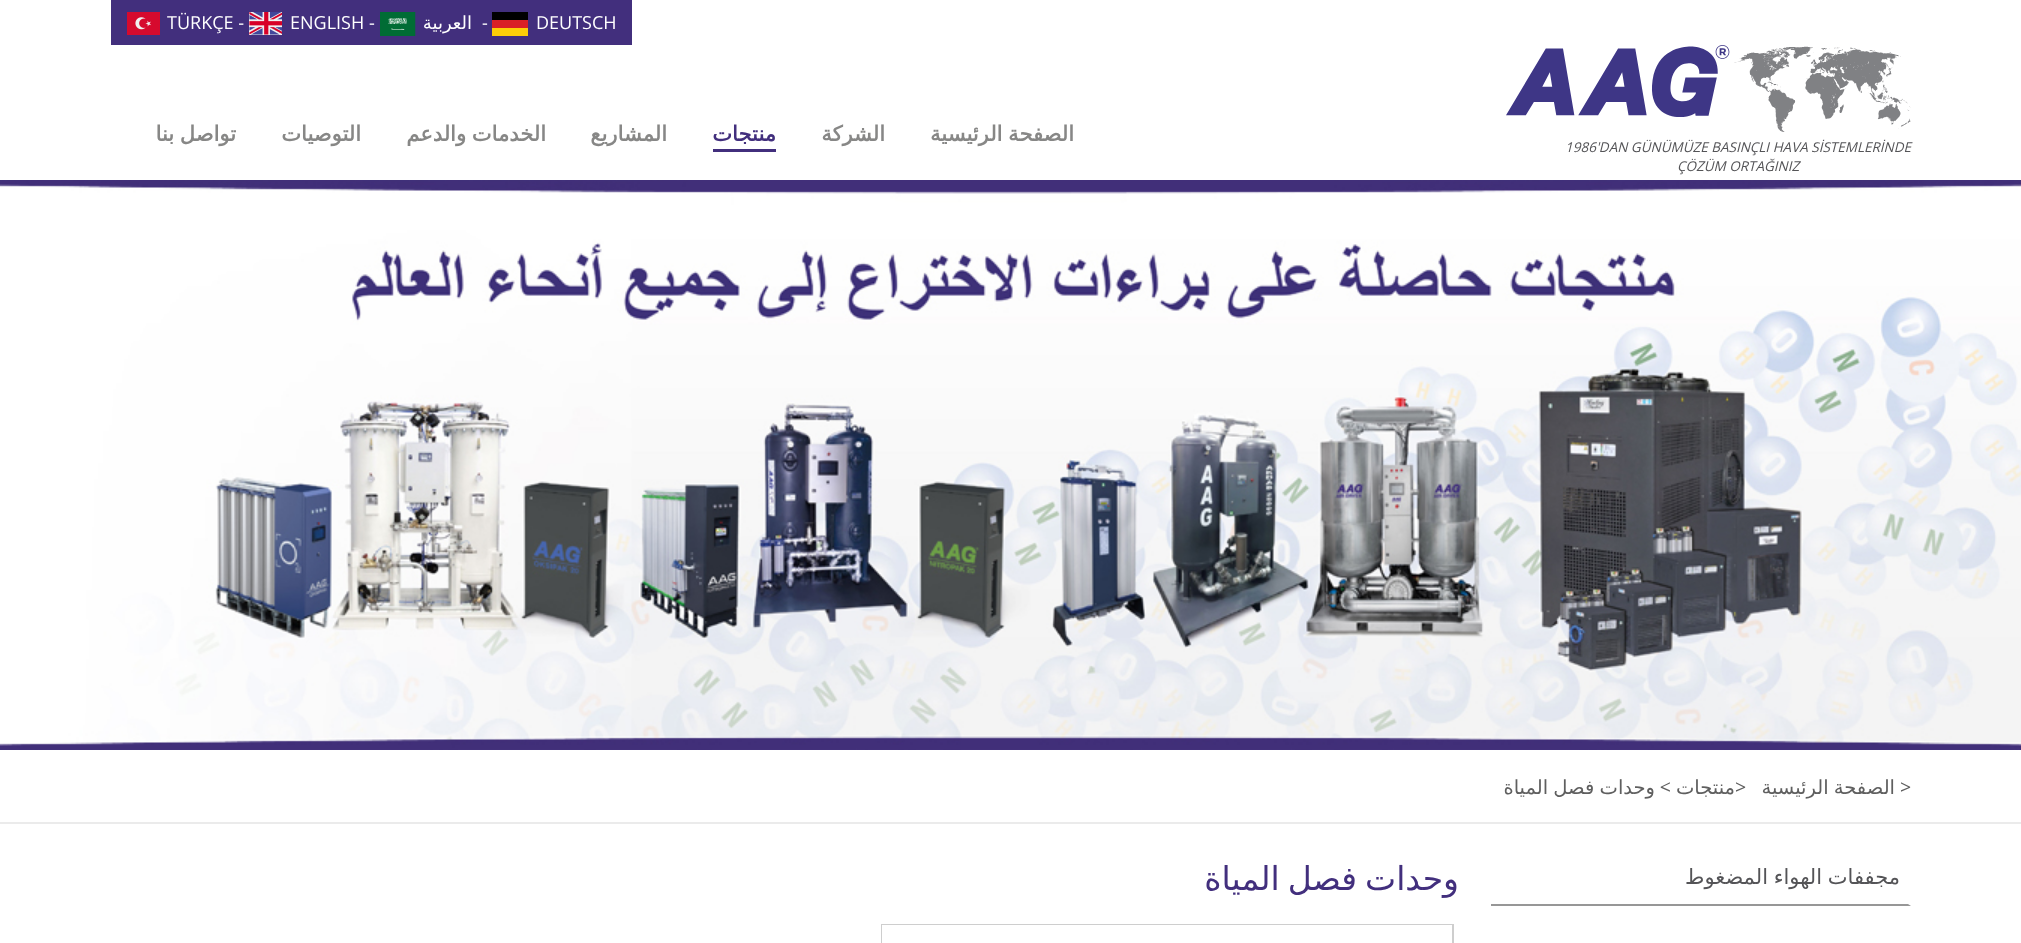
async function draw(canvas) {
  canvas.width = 2021
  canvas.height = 943
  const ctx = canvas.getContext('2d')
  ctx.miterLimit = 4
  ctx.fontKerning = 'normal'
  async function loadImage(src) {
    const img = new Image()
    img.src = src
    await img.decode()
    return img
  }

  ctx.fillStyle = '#fff'
  ctx.fillRect(0, 0, 2021, 943)
  ctx.fillStyle = '#422f7d'
  ctx.fillRect(111, 0, 521, 45)
  ctx.font = '18px Open Sans'
  ctx.fillStyle = '#fff'
  ctx.fillText('DEUTSCH', 536, 29)
  ctx.fillStyle = '#000'
  ctx.fillRect(492, 12, 36, 8)
  ctx.fillStyle = '#d91f26'
  ctx.fillRect(492, 20, 36, 8)
  ctx.fillStyle = '#fcce08'
  ctx.fillRect(492, 28, 36, 8)
  ctx.fillStyle = '#fff'
  ctx.fillText('-', 482, 29)
  ctx.direction = 'rtl'
  ctx.font = '18px DejaVu Sans'
  ctx.fillText('العربية', 472, 29)
  ctx.drawImage(await loadImage('image0.png'), 380, 12, 36, 24)
  ctx.direction = 'ltr'
  ctx.font = '18px Open Sans'
  ctx.fillText('ENGLISH -', 290, 29)
  ctx.drawImage(await loadImage('image1.png'), 249, 12, 33, 23)
  ctx.fillText('TÜRKÇE -', 167, 29)
  ctx.drawImage(await loadImage('image2.png'), 127, 12, 33, 23)
  ctx.drawImage(await loadImage('image3.png'), 1506, 45, 405, 87)
  ctx.wordSpacing = '-1px'
  ctx.direction = 'rtl'
  ctx.font = 'bold 21px DejaVu Sans'
  ctx.fillStyle = '#878786'
  ctx.fillText('الصفحة الرئيسية', 1074, 141)
  ctx.wordSpacing = '0px'
  ctx.fillText('الشركة', 885, 141)
  ctx.fillStyle = '#422f7d'
  ctx.fillRect(713, 149, 63, 3)
  ctx.fillText('منتجات', 776, 141)
  ctx.fillStyle = '#878786'
  ctx.fillText('المشاريع', 667, 141)
  ctx.wordSpacing = '-1px'
  ctx.fillText('الخدمات والدعم', 546, 141)
  ctx.wordSpacing = '0px'
  ctx.fillText('التوصيات', 361, 141)
  ctx.wordSpacing = '-1px'
  ctx.fillText('تواصل بنا', 236, 141)
  ctx.wordSpacing = '0px'
  ctx.direction = 'ltr'
  ctx.font = 'italic 13.5px Open Sans'
  ctx.fillStyle = '#545457'
  ctx.fillText('1986\'DAN GÜNÜMÜZE BASINÇLI HAVA SİSTEMLERİNDE', 1565, 152)
  ctx.fillText('ÇÖZÜM ORTAĞINIZ', 1677, 171)
  ctx.drawImage(await loadImage('image4.png'), 0, 180, 2021, 570)
  ctx.fillStyle = '#ebebeb'
  ctx.fillRect(0, 822, 2021, 2)
  ctx.font = '19.5px Open Sans'
  ctx.fillStyle = '#5f5f5f'
  ctx.fillText('>', 1900, 794)
  ctx.wordSpacing = '-1px'
  ctx.direction = 'rtl'
  ctx.font = '19.5px DejaVu Sans'
  ctx.fillText('الصفحة الرئيسية', 1895, 794)
  ctx.wordSpacing = '0px'
  ctx.direction = 'ltr'
  ctx.font = '19.5px Open Sans'
  ctx.fillText('>', 1735, 794)
  ctx.direction = 'rtl'
  ctx.font = '19.5px DejaVu Sans'
  ctx.fillText('منتجات', 1735, 794)
  ctx.font = '19.5px Open Sans'
  ctx.fillText('>', 1671, 794)
  ctx.wordSpacing = '-1px'
  ctx.font = '19.5px DejaVu Sans'
  ctx.fillText('وحدات فصل المياة', 1655, 794)
  ctx.fillStyle = '#979797'
  ctx.beginPath()
  ctx.moveTo(1911, 906)
  ctx.lineTo(1491, 906)
  ctx.lineTo(1491, 904)
  ctx.lineTo(1908, 904)
  ctx.closePath()
  ctx.fill()
  ctx.font = '21px DejaVu Sans'
  ctx.fillStyle = '#545457'
  ctx.fillText('مجففات الهواء المضغوط', 1900, 884)
  ctx.letterSpacing = '1.5px'
  ctx.wordSpacing = '-4px'
  ctx.font = '33px DejaVu Sans'
  ctx.fillStyle = '#422f7d'
  ctx.fillText('وحدات فصل المياة', 1459, 890)
  ctx.strokeStyle = '#cecece'
  ctx.lineWidth = 2
  ctx.strokeRect(882, 925, 571, 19)
  ctx.fillStyle = '#fff'
  ctx.fillRect(882, 925, 570, 18)
}

draw(document.querySelector('canvas'))
